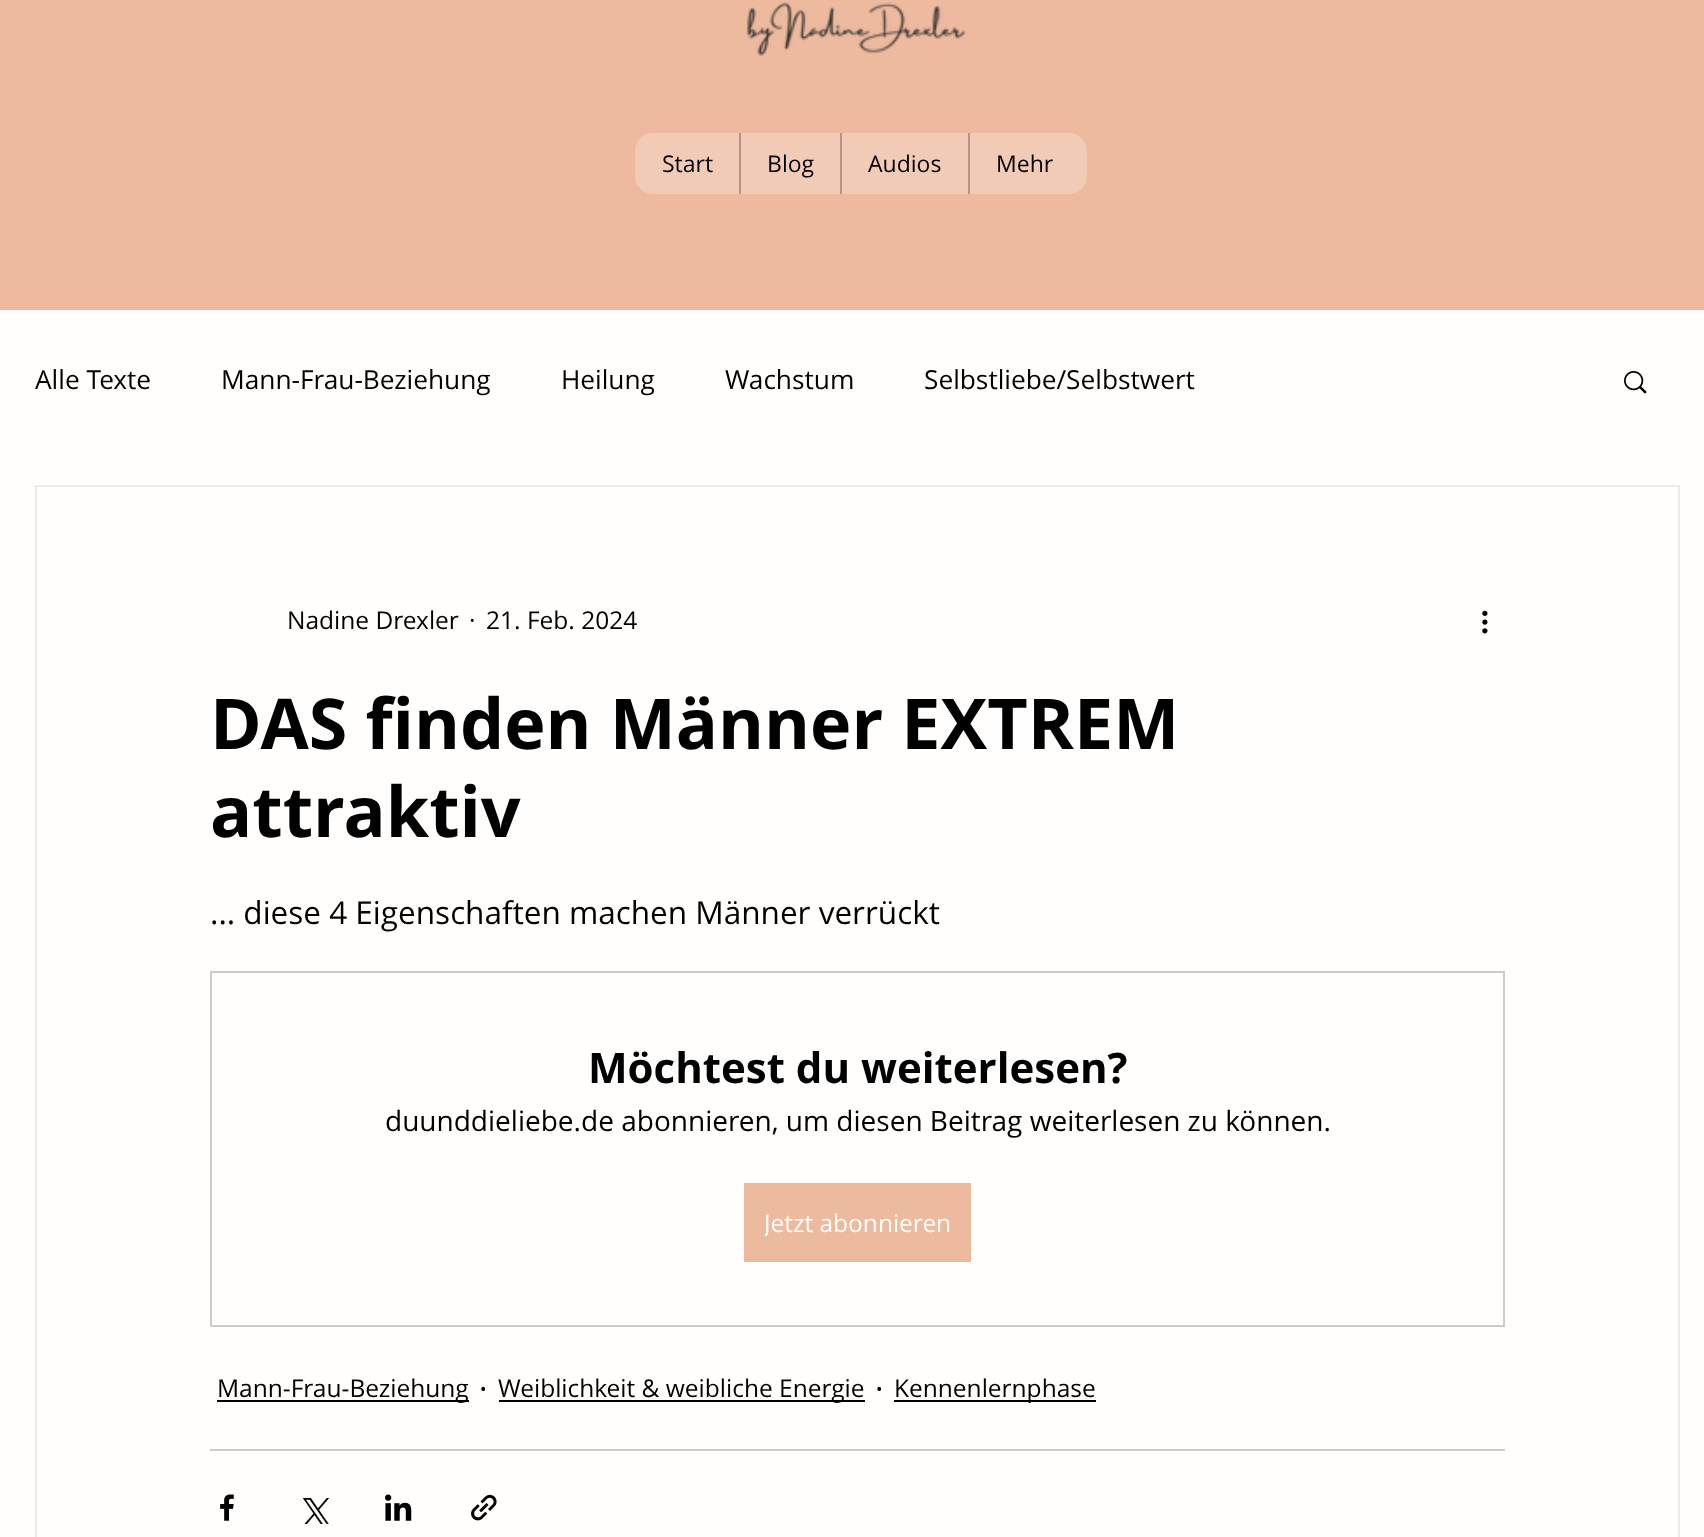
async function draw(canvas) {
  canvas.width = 1704
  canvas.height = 1537
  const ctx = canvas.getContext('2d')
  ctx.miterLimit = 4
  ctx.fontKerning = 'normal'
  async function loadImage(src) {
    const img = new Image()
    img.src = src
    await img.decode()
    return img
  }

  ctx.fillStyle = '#fffefc'
  ctx.fillRect(0, 0, 1704, 1537)
  ctx.fillStyle = '#edba9f'
  ctx.fillRect(0, 0, 1704, 310)
  ctx.drawImage(await loadImage('image0.png'), 746, 2, 220, 54)
  ctx.fillStyle = '#f2cbb6'
  ctx.beginPath()
  ctx.roundRect(635, 133, 452, 61, 18)
  ctx.fill()
  ctx.font = '23px Open Sans'
  ctx.fillStyle = '#000'
  ctx.fillText('Start', 662, 172)
  ctx.fillStyle = '#b39687'
  ctx.fillRect(739, 133, 2, 61)
  ctx.fillStyle = '#000'
  ctx.fillText('Blog', 767, 172)
  ctx.fillStyle = '#b39687'
  ctx.fillRect(840, 133, 2, 61)
  ctx.fillStyle = '#000'
  ctx.fillText('Audios', 868, 172)
  ctx.fillStyle = '#b39687'
  ctx.fillRect(968, 133, 2, 61)
  ctx.fillStyle = '#000'
  ctx.fillText('Mehr', 996, 172)
  ctx.font = '26.25px Open Sans'
  ctx.fillText('Alle Texte', 35, 389)
  ctx.fillText('Mann-Frau-Beziehung', 221, 389)
  ctx.fillText('Heilung', 561, 389)
  ctx.fillText('Wachstum', 725, 389)
  ctx.fillText('Selbstliebe/Selbstwert', 924, 389)
  ctx.drawImage(await loadImage('image1.png'), 1624, 371, 23, 23)
  ctx.strokeStyle = '#ececec'
  ctx.lineWidth = 2
  ctx.strokeRect(36, 486, 1643, 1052)
  ctx.font = '24.5px Open Sans'
  ctx.fillText('Nadine Drexler', 287, 629)
  ctx.fillText('·', 469, 629)
  ctx.fillText('21. Feb. 2024', 486, 629)
  ctx.drawImage(await loadImage('image2.png'), 1482, 610, 6, 24)
  ctx.font = 'bold 70px Open Sans'
  ctx.fillText('DAS finden Männer EXTREM', 210, 749)
  ctx.fillText('attraktiv', 210, 837)
  ctx.font = '31.5px Open Sans'
  ctx.fillText('... diese 4 Eigenschaften machen Männer verrückt', 210, 924)
  ctx.strokeStyle = '#cccbca'
  ctx.strokeRect(211, 972, 1293, 354)
  ctx.font = 'bold 42px Open Sans'
  ctx.fillText('Möchtest du weiterlesen?', 588, 1083)
  ctx.font = '28px Open Sans'
  ctx.fillText('duunddieliebe.de abonnieren, um diesen Beitrag weiterlesen zu können.', 385, 1131)
  ctx.fillStyle = '#ecba9f'
  ctx.fillRect(744, 1183, 227, 79)
  ctx.save()
  ctx.beginPath()
  ctx.rect(765, 1204, 185, 37)
  ctx.clip()
  ctx.font = '24.5px Open Sans'
  ctx.fillStyle = '#fffefc'
  ctx.fillText('Jetzt abonnieren', 764, 1232)
  ctx.restore()
  ctx.fillStyle = '#000'
  ctx.fillRect(217, 1400, 252, 2)
  ctx.font = '24.5px Open Sans'
  ctx.fillText('Mann-Frau-Beziehung', 217, 1397)
  ctx.font = '31.5px Open Sans'
  ctx.fillText('·', 479, 1400)
  ctx.fillRect(499, 1400, 366, 2)
  ctx.font = '24.5px Open Sans'
  ctx.fillText('Weiblichkeit & weibliche Energie', 498, 1397)
  ctx.font = '31.5px Open Sans'
  ctx.fillText('·', 875, 1400)
  ctx.fillRect(894, 1400, 202, 2)
  ctx.font = '24.5px Open Sans'
  ctx.fillText('Kennenlernphase', 894, 1397)
  ctx.fillStyle = '#cccbca'
  ctx.fillRect(210, 1449, 1295, 2)
  ctx.drawImage(await loadImage('image3.png'), 220, 1494, 14, 27)
  ctx.drawImage(await loadImage('image4.png'), 302, 1498, 27, 26)
  ctx.drawImage(await loadImage('image5.png'), 385, 1494, 27, 27)
  ctx.drawImage(await loadImage('image6.png'), 471, 1494, 26, 27)
}

draw(document.querySelector('canvas'))
